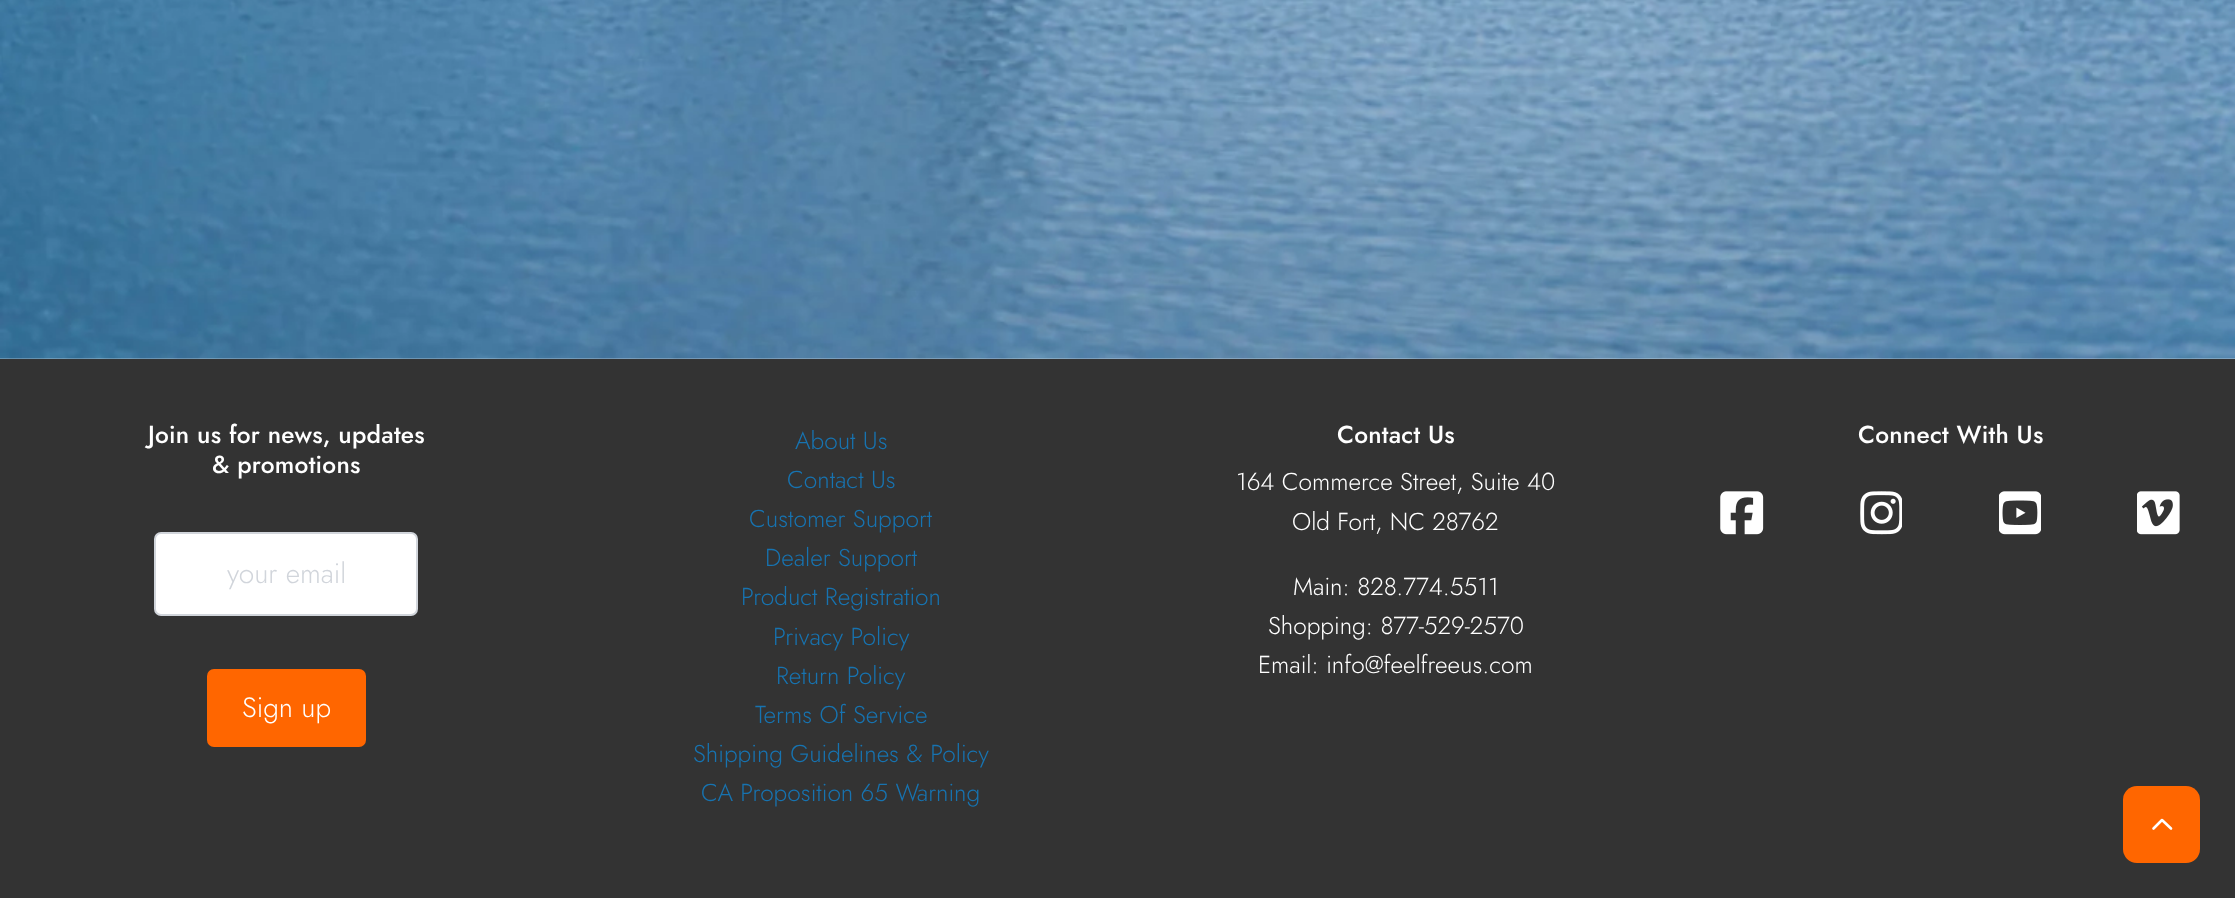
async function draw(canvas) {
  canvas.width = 2235
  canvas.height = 898
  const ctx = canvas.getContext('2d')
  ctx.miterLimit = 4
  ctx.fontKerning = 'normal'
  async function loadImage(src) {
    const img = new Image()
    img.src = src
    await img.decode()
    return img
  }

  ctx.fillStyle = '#fff'
  ctx.fillRect(0, 0, 2235, 898)
  ctx.drawImage(await loadImage('image0.png'), 0, 0, 2235, 359)
  ctx.fillStyle = '#333'
  ctx.fillRect(0, 359, 2235, 539)
  ctx.letterSpacing = '0.25px'
  ctx.font = '500 24.5px Jost'
  ctx.fillStyle = '#fff'
  ctx.fillText('Join us for news, updates', 148, 443)
  ctx.fillText('& promotions', 212, 473)
  ctx.beginPath()
  ctx.roundRect(155, 533, 262, 82, 6)
  ctx.fill()
  ctx.strokeStyle = '#d1d5db'
  ctx.lineWidth = 2
  ctx.stroke()
  ctx.letterSpacing = '0px'
  ctx.font = '300 28px Jost'
  ctx.fillStyle = '#d1d5db'
  ctx.fillText('your email', 227, 583)
  ctx.fillStyle = '#f60'
  ctx.beginPath()
  ctx.roundRect(207, 669, 159, 78, 7)
  ctx.fill()
  ctx.fillStyle = '#fff'
  ctx.fillText('Sign up', 242, 717)
  ctx.font = '300 24.5px Jost'
  ctx.fillStyle = '#1773b0'
  ctx.fillText('About Us', 795, 449)
  ctx.fillText('Contact Us', 787, 488)
  ctx.fillText('Customer Support', 749, 527)
  ctx.fillText('Dealer Support', 765, 566)
  ctx.fillText('Product Registration', 741, 605)
  ctx.fillText('Privacy Policy', 773, 645)
  ctx.fillText('Return Policy', 776, 684)
  ctx.fillText('Terms Of Service', 755, 723)
  ctx.fillText('Shipping Guidelines & Policy', 693, 762)
  ctx.fillText('CA Proposition 65 Warning', 701, 801)
  ctx.letterSpacing = '0.25px'
  ctx.font = '500 24.5px Jost'
  ctx.fillStyle = '#fff'
  ctx.fillText('Contact Us', 1337, 443)
  ctx.letterSpacing = '0px'
  ctx.font = '300 24.5px Jost'
  ctx.fillText('164 Commerce Street, Suite 40', 1236, 490)
  ctx.fillText('Old Fort, NC 28762', 1292, 530)
  ctx.fillText('Main: 828.774.5511', 1293, 595)
  ctx.fillText('Shopping: 877-529-2570', 1268, 634)
  ctx.fillText('Email: info@feelfreeus.com', 1258, 673)
  ctx.letterSpacing = '0.25px'
  ctx.font = '500 24.5px Jost'
  ctx.fillText('Connect With Us', 1858, 443)
  ctx.drawImage(await loadImage('image1.png'), 1720, 491, 44, 44)
  ctx.drawImage(await loadImage('image2.png'), 1860, 491, 42, 44)
  ctx.drawImage(await loadImage('image3.png'), 1999, 491, 42, 44)
  ctx.drawImage(await loadImage('image4.png'), 2137, 491, 43, 44)
  ctx.fillStyle = '#f60'
  ctx.beginPath()
  ctx.roundRect(2123, 786, 77, 77, 14)
  ctx.fill()
  ctx.beginPath()
  ctx.moveTo(2153.5, 828.5)
  ctx.lineTo(2162, 820)
  ctx.lineTo(2171, 828.5)
  ctx.strokeStyle = '#fff'
  ctx.lineWidth = 2.6
  ctx.lineCap = 'round'
  ctx.lineJoin = 'round'
  ctx.stroke()
}

draw(document.querySelector('canvas'))
